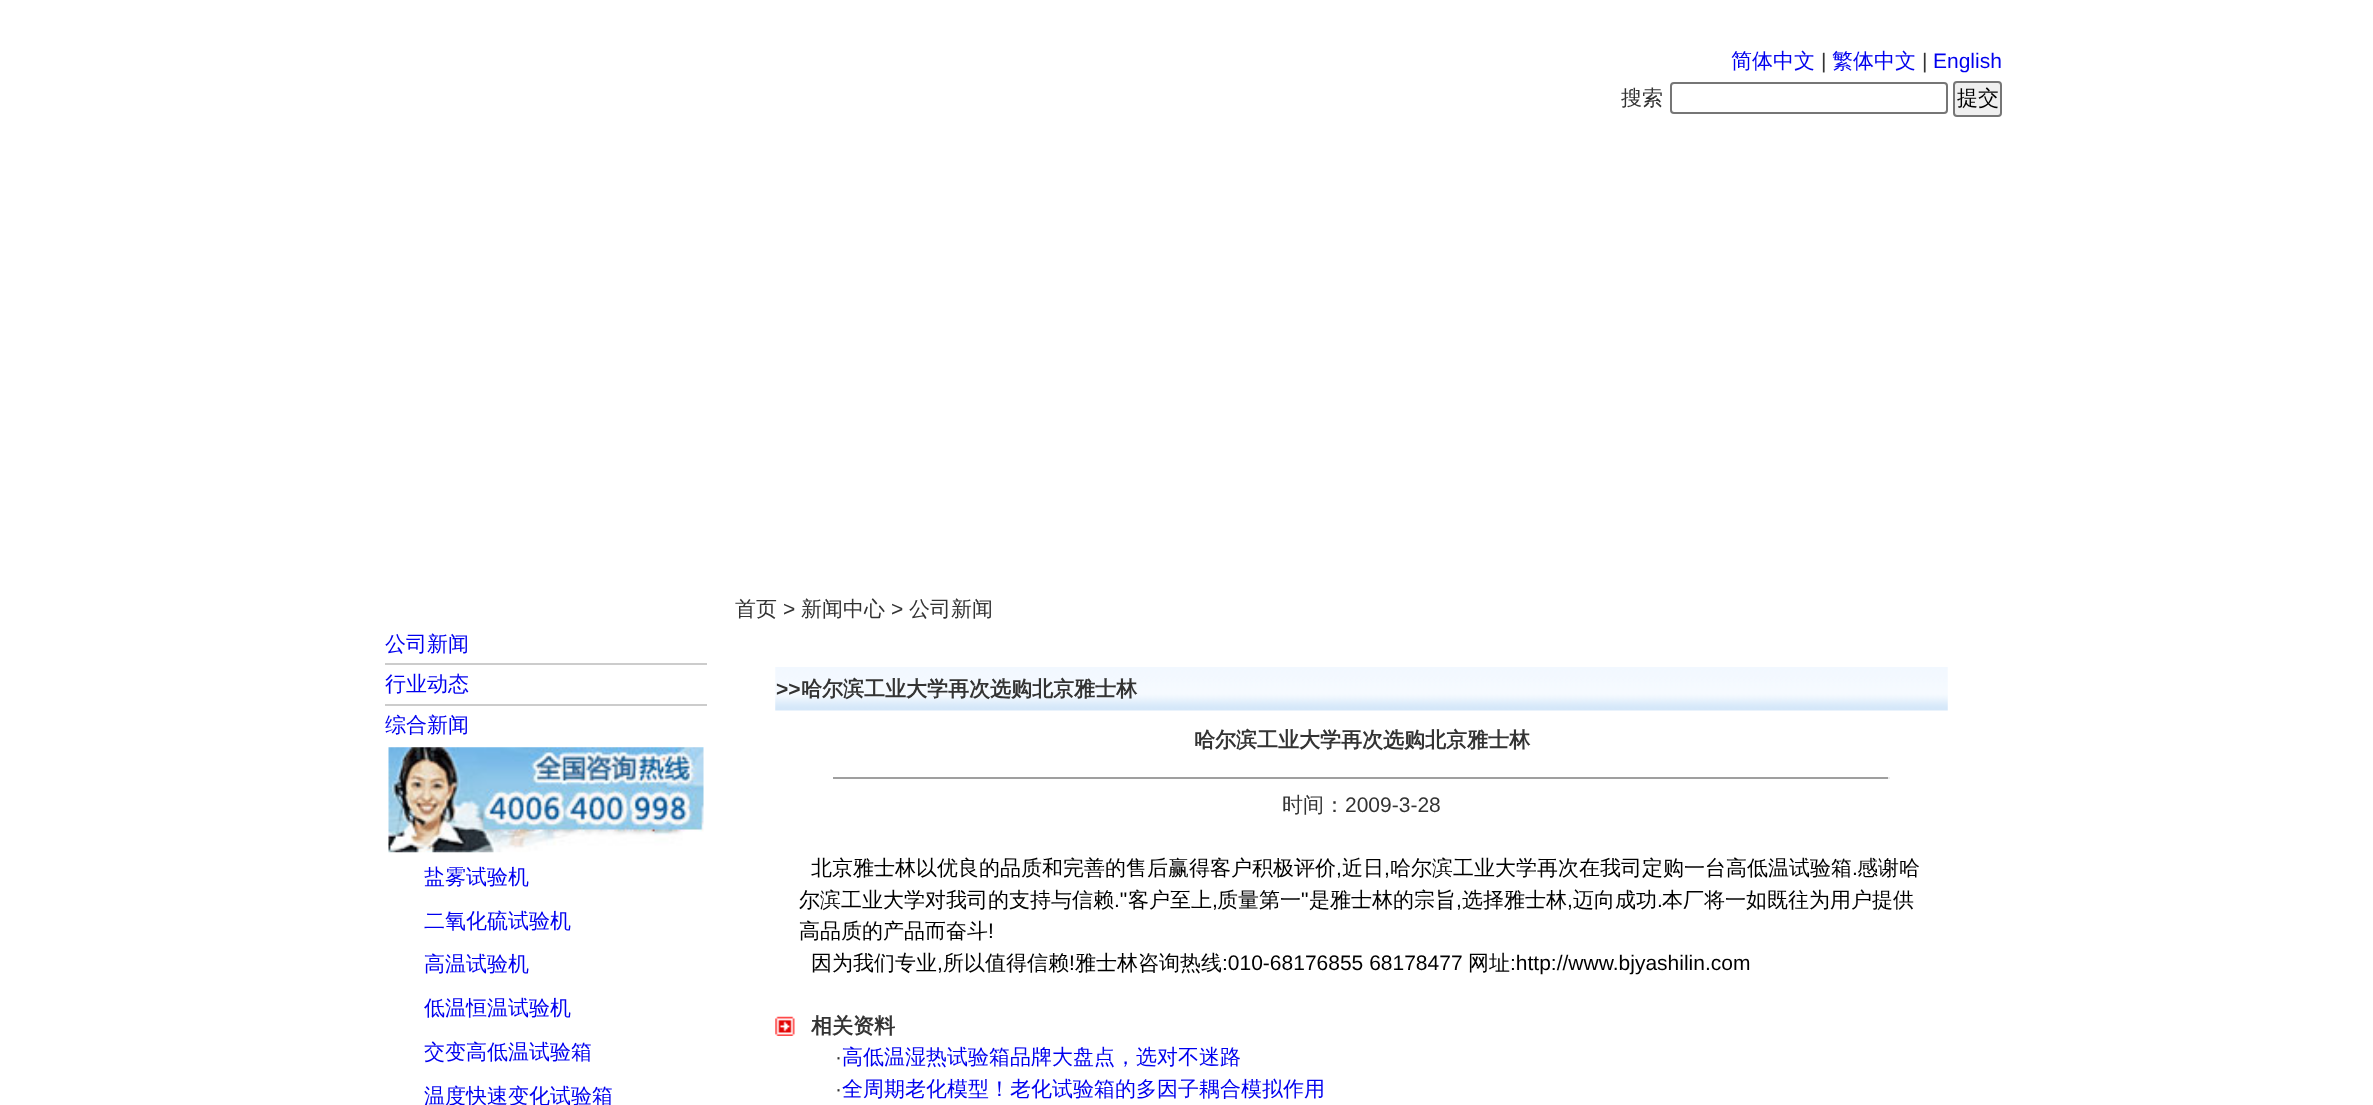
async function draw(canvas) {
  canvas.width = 2373
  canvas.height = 1105
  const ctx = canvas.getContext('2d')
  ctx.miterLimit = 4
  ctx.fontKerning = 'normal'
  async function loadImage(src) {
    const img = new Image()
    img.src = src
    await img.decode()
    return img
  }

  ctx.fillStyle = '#fff'
  ctx.fillRect(0, 0, 2373, 1105)
  ctx.font = '500 21px WenQuanYi Zen Hei'
  ctx.fillStyle = '#00e'
  ctx.fillText('简体中文', 1731, 68)
  ctx.font = '21px Liberation Sans'
  ctx.fillStyle = '#333'
  ctx.fillText('|', 1821, 68)
  ctx.font = '500 21px WenQuanYi Zen Hei'
  ctx.fillStyle = '#00e'
  ctx.fillText('繁体中文', 1832, 68)
  ctx.font = '21px Liberation Sans'
  ctx.fillStyle = '#333'
  ctx.fillText('|', 1922, 68)
  ctx.fillStyle = '#00e'
  ctx.fillText('English', 1933, 68)
  ctx.font = '500 21px WenQuanYi Zen Hei'
  ctx.fillStyle = '#333'
  ctx.fillText('搜索', 1621, 105)
  ctx.beginPath()
  ctx.roundRect(1671, 83, 276, 30, 3)
  ctx.strokeStyle = '#767676'
  ctx.lineWidth = 2
  ctx.stroke()
  ctx.fillStyle = '#efefef'
  ctx.beginPath()
  ctx.roundRect(1954, 82, 47, 34, 3)
  ctx.fill()
  ctx.stroke()
  ctx.fillStyle = '#000'
  ctx.fillText('提交', 1957, 105)
  ctx.fillStyle = '#00e'
  ctx.fillText('公司新闻', 385, 651)
  ctx.fillStyle = '#ccc'
  ctx.fillRect(385, 663, 322, 2)
  ctx.fillStyle = '#00e'
  ctx.fillText('行业动态', 385, 691)
  ctx.fillStyle = '#ccc'
  ctx.fillRect(385, 704, 322, 2)
  ctx.fillStyle = '#00e'
  ctx.fillText('综合新闻', 385, 732)
  ctx.drawImage(await loadImage('image0.png'), 388, 747, 316, 106)
  ctx.fillText('盐雾试验机', 424, 884)
  ctx.fillText('二氧化硫试验机', 424, 928)
  ctx.fillText('高温试验机', 424, 971)
  ctx.fillText('低温恒温试验机', 424, 1015)
  ctx.fillText('交变高低温试验箱', 424, 1059)
  ctx.fillText('温度快速变化试验箱', 424, 1103)
  ctx.fillStyle = '#333'
  ctx.fillText('首页', 735, 616)
  ctx.font = '21px Liberation Sans'
  ctx.fillText('>', 783, 616)
  ctx.font = '500 21px WenQuanYi Zen Hei'
  ctx.fillText('新闻中心', 801, 616)
  ctx.font = '21px Liberation Sans'
  ctx.fillText('>', 891, 616)
  ctx.font = '500 21px WenQuanYi Zen Hei'
  ctx.fillText('公司新闻', 909, 616)
  ctx.drawImage(await loadImage('image1.png'), 775, 667, 1173, 44)
  ctx.font = 'bold 21px Liberation Sans'
  ctx.fillText('>>', 776, 696)
  ctx.font = 'bold 21px WenQuanYi Zen Hei'
  ctx.fillText('哈尔滨工业大学再次选购北京雅士林', 801, 696)
  ctx.fillText('哈尔滨工业大学再次选购北京雅士林', 1194, 747)
  ctx.fillStyle = '#9f9f9f'
  ctx.fillRect(833, 777, 1057, 2)
  ctx.fillStyle = '#eee'
  ctx.fillRect(1888, 777, 2, 2)
  ctx.font = '500 21px WenQuanYi Zen Hei'
  ctx.fillStyle = '#333'
  ctx.fillText('时间：', 1282, 812)
  ctx.font = '21px Liberation Sans'
  ctx.fillText('2009-3-28', 1345, 812)
  ctx.font = '500 21px WenQuanYi Zen Hei'
  ctx.fillStyle = '#000'
  ctx.fillText('北京雅士林以优良的品质和完善的售后赢得客户积极评价', 811, 875)
  ctx.font = '21px Liberation Sans'
  ctx.fillText(',', 1336, 875)
  ctx.font = '500 21px WenQuanYi Zen Hei'
  ctx.fillText('近日', 1342, 875)
  ctx.font = '21px Liberation Sans'
  ctx.fillText(',', 1384, 875)
  ctx.font = '500 21px WenQuanYi Zen Hei'
  ctx.fillText('哈尔滨工业大学再次在我司定购一台高低温试验箱', 1390, 875)
  ctx.font = '21px Liberation Sans'
  ctx.fillText('.', 1852, 875)
  ctx.font = '500 21px WenQuanYi Zen Hei'
  ctx.fillText('感谢哈', 1857, 875)
  ctx.fillText('尔滨工业大学对我司的支持与信赖', 799, 907)
  ctx.font = '21px Liberation Sans'
  ctx.fillText('."', 1114, 907)
  ctx.font = '500 21px WenQuanYi Zen Hei'
  ctx.fillText('客户至上', 1128, 907)
  ctx.fillText('质量第一', 1217, 907)
  ctx.font = '21px Liberation Sans'
  ctx.fillText('"', 1301, 907)
  ctx.font = '500 21px WenQuanYi Zen Hei'
  ctx.fillText('是雅士林的宗旨', 1309, 907)
  ctx.fillText('选择雅士林', 1462, 907)
  ctx.fillText('迈向成功', 1573, 907)
  ctx.fillText('本厂将一如既往为用户提供', 1662, 907)
  ctx.font = '21px Liberation Sans'
  ctx.fillText(',', 1212, 907)
  ctx.fillText(',', 1456, 907)
  ctx.fillText(',', 1567, 907)
  ctx.fillText('.', 1657, 907)
  ctx.font = '500 21px WenQuanYi Zen Hei'
  ctx.fillText('高品质的产品而奋斗', 799, 938)
  ctx.font = '21px Liberation Sans'
  ctx.fillText('!', 988, 938)
  ctx.font = '500 21px WenQuanYi Zen Hei'
  ctx.fillText('因为我们专业', 811, 970)
  ctx.font = '21px Liberation Sans'
  ctx.fillText(',', 937, 970)
  ctx.font = '500 21px WenQuanYi Zen Hei'
  ctx.fillText('所以值得信赖', 943, 970)
  ctx.font = '21px Liberation Sans'
  ctx.fillText('!', 1069, 970)
  ctx.font = '500 21px WenQuanYi Zen Hei'
  ctx.fillText('雅士林咨询热线', 1075, 970)
  ctx.font = '21px Liberation Sans'
  ctx.fillText(':010-68176855 68178477', 1222, 970)
  ctx.font = '500 21px WenQuanYi Zen Hei'
  ctx.fillText('网址', 1468, 970)
  ctx.font = '21px Liberation Sans'
  ctx.fillText(':http://www.bjyashilin.com', 1510, 970)
  ctx.drawImage(await loadImage('image2.png'), 775, 1016, 20, 20)
  ctx.font = 'bold 21px WenQuanYi Zen Hei'
  ctx.fillStyle = '#333'
  ctx.fillText('相关资料', 811, 1033)
  ctx.font = '21px Liberation Sans'
  ctx.fillText('·', 835, 1064)
  ctx.font = '500 21px WenQuanYi Zen Hei'
  ctx.fillStyle = '#00e'
  ctx.fillText('高低温湿热试验箱品牌大盘点，选对不迷路', 842, 1064)
  ctx.font = '21px Liberation Sans'
  ctx.fillStyle = '#333'
  ctx.fillText('·', 835, 1096)
  ctx.font = '500 21px WenQuanYi Zen Hei'
  ctx.fillStyle = '#00e'
  ctx.fillText('全周期老化模型！老化试验箱的多因子耦合模拟作用', 842, 1096)
}

draw(document.querySelector('canvas'))
